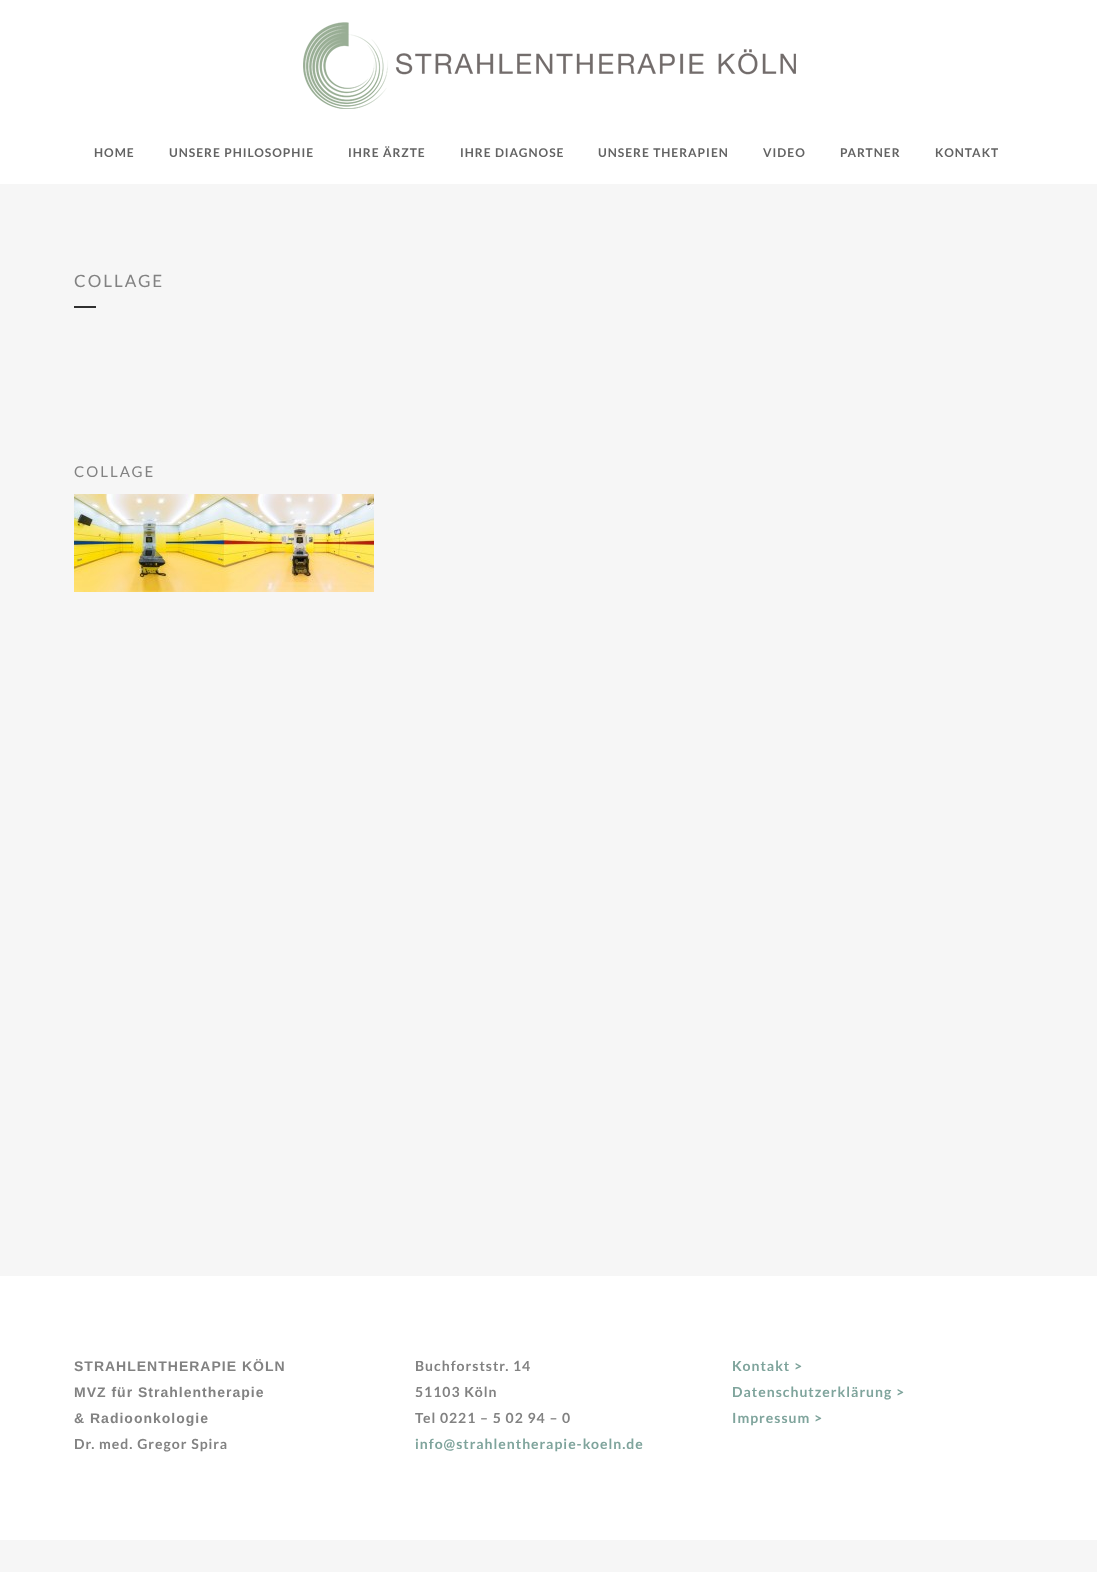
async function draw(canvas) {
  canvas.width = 1097
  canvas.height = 1572
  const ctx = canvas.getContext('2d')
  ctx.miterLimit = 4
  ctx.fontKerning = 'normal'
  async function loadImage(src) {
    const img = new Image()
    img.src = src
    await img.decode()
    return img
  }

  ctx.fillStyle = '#f6f6f6'
  ctx.fillRect(0, 0, 1097, 1572)
  ctx.fillStyle = '#fff'
  ctx.fillRect(0, 0, 1097, 184)
  ctx.drawImage(await loadImage('image0.png'), 303, 22, 493, 87)
  ctx.letterSpacing = '1px'
  ctx.font = 'bold 12px Lato'
  ctx.fillStyle = '#636363'
  ctx.fillText('HOME', 94, 157)
  ctx.fillText('UNSERE PHILOSOPHIE', 169, 157)
  ctx.fillText('IHRE ÄRZTE', 348, 157)
  ctx.fillText('IHRE DIAGNOSE', 460, 157)
  ctx.fillText('UNSERE THERAPIEN', 598, 157)
  ctx.fillText('VIDEO', 763, 157)
  ctx.fillText('PARTNER', 840, 157)
  ctx.fillText('KONTAKT', 935, 157)
  ctx.letterSpacing = '2px'
  ctx.font = '17px Lato'
  ctx.fillStyle = '#828282'
  ctx.fillText('COLLAGE', 74, 287)
  ctx.fillStyle = '#303030'
  ctx.fillRect(74, 306, 22, 2)
  ctx.font = '15px Lato'
  ctx.fillStyle = '#828282'
  ctx.fillText('COLLAGE', 74, 477)
  ctx.drawImage(await loadImage('image1.png'), 74, 494, 300, 98)
  ctx.fillStyle = '#fff'
  ctx.fillRect(0, 1276, 1097, 264)
  ctx.letterSpacing = '1px'
  ctx.font = 'bold 14px Liberation Sans'
  ctx.fillStyle = '#828282'
  ctx.fillText('STRAHLENTHERAPIE KÖLN', 74, 1371)
  ctx.fillText('MVZ für Strahlentherapie', 74, 1397)
  ctx.fillText('& Radioonkologie', 74, 1423)
  ctx.font = 'bold 14px Lato'
  ctx.fillText('Dr. med. Gregor Spira', 74, 1449)
  ctx.fillText('Buchforststr. 14', 415, 1371)
  ctx.fillText('51103 Köln', 415, 1397)
  ctx.fillText('Tel 0221 – 5 02 94 – 0', 415, 1423)
  ctx.fillStyle = '#7fa49c'
  ctx.fillText('info@strahlentherapie-koeln.de', 415, 1449)
  ctx.fillText('Kontakt >', 732, 1371)
  ctx.fillText('Datenschutzerklärung >', 732, 1397)
  ctx.fillText('Impressum >', 732, 1423)
}

draw(document.querySelector('canvas'))
